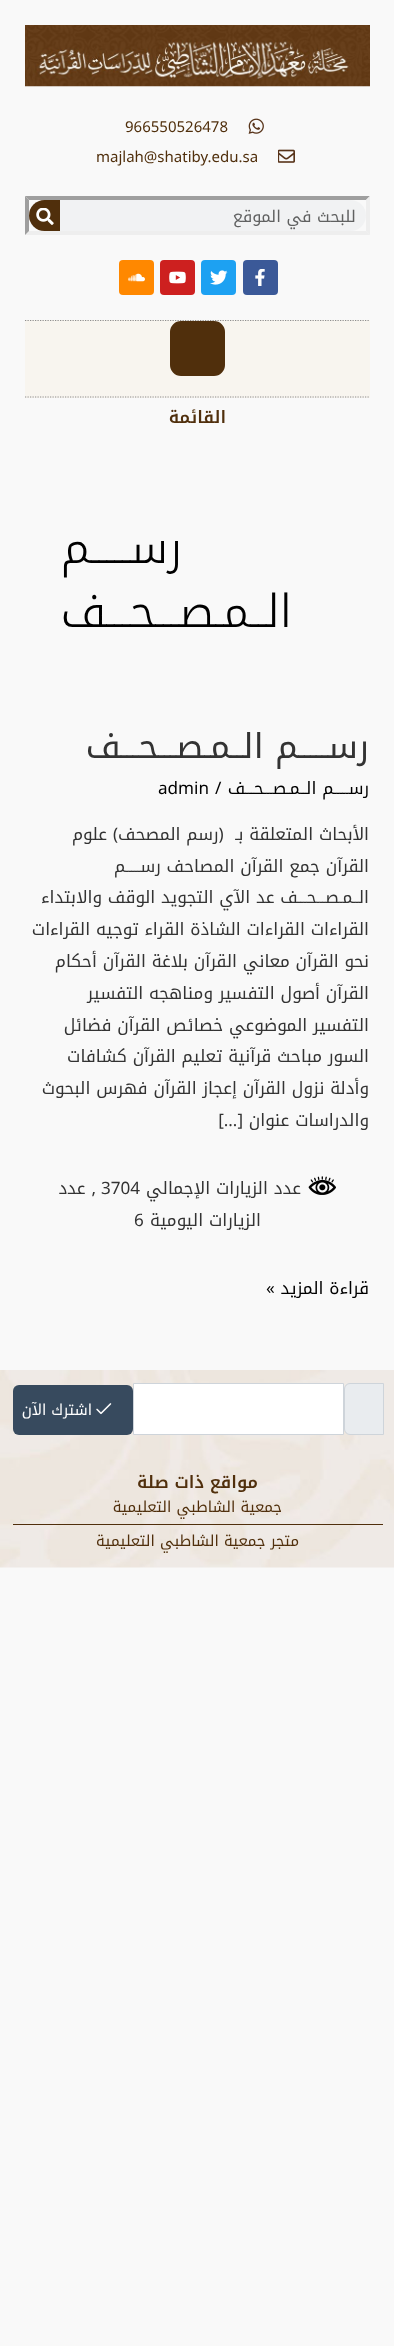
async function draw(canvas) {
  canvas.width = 394
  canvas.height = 2346
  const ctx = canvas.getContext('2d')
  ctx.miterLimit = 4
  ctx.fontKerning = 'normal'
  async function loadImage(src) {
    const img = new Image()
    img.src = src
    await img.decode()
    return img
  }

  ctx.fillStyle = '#f9f9f9'
  ctx.fillRect(0, 0, 394, 2346)
  ctx.drawImage(await loadImage('image0.png'), 25, 25, 345, 62)
  ctx.drawImage(await loadImage('image1.png'), 248, 118, 16, 16)
  ctx.font = '15px Noto Kufi Arabic'
  ctx.fillStyle = '#502f0c'
  ctx.fillText('966550526478', 125, 132)
  ctx.drawImage(await loadImage('image2.png'), 278, 149, 17, 14)
  ctx.fillText('majlah@shatiby.edu.sa', 96, 162)
  ctx.fillStyle = '#9f9f9f'
  ctx.beginPath()
  ctx.moveTo(25, 196)
  ctx.lineTo(370, 196)
  ctx.lineTo(366, 200)
  ctx.lineTo(29, 200)
  ctx.closePath()
  ctx.fill()
  ctx.fillStyle = '#eee'
  ctx.beginPath()
  ctx.moveTo(370, 196)
  ctx.lineTo(370, 235)
  ctx.lineTo(366, 231)
  ctx.lineTo(366, 200)
  ctx.closePath()
  ctx.fill()
  ctx.beginPath()
  ctx.moveTo(370, 235)
  ctx.lineTo(25, 235)
  ctx.lineTo(29, 231)
  ctx.lineTo(366, 231)
  ctx.closePath()
  ctx.fill()
  ctx.fillStyle = '#9f9f9f'
  ctx.beginPath()
  ctx.moveTo(25, 235)
  ctx.lineTo(25, 196)
  ctx.lineTo(29, 200)
  ctx.lineTo(29, 231)
  ctx.closePath()
  ctx.fill()
  ctx.fillStyle = '#f1f2f3'
  ctx.beginPath()
  ctx.roundRect(29, 200, 337, 31, 15.5)
  ctx.fill()
  ctx.direction = 'rtl'
  ctx.font = '16.25px Noto Kufi Arabic'
  ctx.fillStyle = '#606161'
  ctx.fillText('للبحث في الموقع', 356, 222)
  ctx.fillStyle = '#502f0c'
  ctx.beginPath()
  ctx.roundRect(29, 200, 31, 31, [15.5, 0, 0, 15.5])
  ctx.fill()
  ctx.drawImage(await loadImage('image3.png'), 36, 208, 18, 17)
  ctx.fillStyle = '#3b5998'
  ctx.beginPath()
  ctx.roundRect(243, 260, 35, 35, 4)
  ctx.fill()
  ctx.drawImage(await loadImage('image4.png'), 255, 269, 10, 17)
  ctx.fillStyle = '#1da1f2'
  ctx.beginPath()
  ctx.roundRect(201, 260, 35, 35, 4)
  ctx.fill()
  ctx.drawImage(await loadImage('image5.png'), 210, 270, 18, 15)
  ctx.fillStyle = '#cd201f'
  ctx.beginPath()
  ctx.roundRect(160, 260, 35, 35, 4)
  ctx.fill()
  ctx.drawImage(await loadImage('image6.png'), 169, 271, 17, 13)
  ctx.fillStyle = '#f80'
  ctx.beginPath()
  ctx.roundRect(119, 260, 35, 35, 4)
  ctx.fill()
  ctx.drawImage(await loadImage('image7.png'), 128, 273, 17, 9)
  ctx.fillStyle = '#f8f5ef'
  ctx.fillRect(25, 320, 345, 78)
  ctx.beginPath()
  ctx.moveTo(25, 320.5)
  ctx.lineTo(370, 320.5)
  ctx.strokeStyle = '#8e8e8e'
  ctx.lineWidth = 1.2
  ctx.setLineDash([1.25, 1.25])
  ctx.stroke()
  ctx.beginPath()
  ctx.moveTo(25, 397)
  ctx.lineTo(370, 397)
  ctx.stroke()
  ctx.fillStyle = '#502f0c'
  ctx.beginPath()
  ctx.roundRect(172, 323, 51, 51, 9)
  ctx.fill()
  ctx.strokeStyle = '#502f0c'
  ctx.lineWidth = 4
  ctx.setLineDash([])
  ctx.stroke()
  ctx.font = '600 17.1px Noto Kufi Arabic'
  ctx.fillText('القائمة', 226, 423)
  ctx.font = '300 45.5px Noto Kufi Arabic'
  ctx.fillStyle = '#000'
  ctx.fillText('رســـــم', 182, 563)
  ctx.fillText('الــمـصـــحـــف', 292, 627)
  ctx.font = '34.25px Noto Kufi Arabic'
  ctx.fillStyle = '#333'
  ctx.fillText('رســـــم الــمـصـــحـــف', 369, 758)
  ctx.font = '17.1px Noto Kufi Arabic'
  ctx.fillStyle = '#000'
  ctx.fillText('رســـــم الــمـصـــحـــف', 369, 794)
  ctx.direction = 'ltr'
  ctx.fillText('/', 215, 794)
  ctx.fillText('admin', 158, 794)
  ctx.direction = 'rtl'
  ctx.fillStyle = '#333'
  ctx.fillText('الأبحاث المتعلقة بـ  (رسم المصحف) علوم', 369, 840)
  ctx.fillText('القرآن جمع القرآن المصاحف رســـــم', 369, 872)
  ctx.fillText('الــمـصـــحـــف عد الآي التجويد الوقف والابتداء', 369, 903)
  ctx.fillText('القراءات القراءات الشاذة القراء توجيه القراءات', 369, 935)
  ctx.fillText('نحو القرآن معاني القرآن بلاغة القرآن أحكام', 369, 967)
  ctx.fillText('القرآن أصول التفسير ومناهجه التفسير', 369, 999)
  ctx.fillText('التفسير الموضوعي خصائص القرآن فضائل', 369, 1031)
  ctx.fillText('السور مباحث قرآنية تعليم القرآن كشافات', 369, 1062)
  ctx.fillText('وأدلة نزول القرآن إعجاز القرآن فهرس البحوث', 369, 1094)
  ctx.fillText('والدراسات عنوان […]', 369, 1126)
  ctx.drawImage(await loadImage('image8.png'), 308, 1176, 28, 19)
  ctx.fillText('عدد الزيارات الإجمالي', 301, 1194)
  ctx.direction = 'ltr'
  ctx.fillText('3704', 101, 1194)
  ctx.direction = 'rtl'
  ctx.fillText(', عدد', 96, 1194)
  ctx.fillText('الزيارات اليومية', 261, 1226)
  ctx.direction = 'ltr'
  ctx.fillText('6', 134, 1226)
  ctx.direction = 'rtl'
  ctx.fillStyle = '#000'
  ctx.fillText('قراءة المزيد »', 369, 1294)
  ctx.drawImage(await loadImage('image9.png'), 0, 1370, 394, 198)
  ctx.fillStyle = '#e9ecef'
  ctx.beginPath()
  ctx.roundRect(344.5, 1383.5, 39, 51, [5.5, 0, 0, 5.5])
  ctx.fill()
  ctx.strokeStyle = '#ced4da'
  ctx.lineWidth = 1
  ctx.stroke()
  ctx.fillStyle = '#fff'
  ctx.beginPath()
  ctx.rect(133.5, 1383.5, 210, 51)
  ctx.fill()
  ctx.stroke()
  ctx.fillStyle = '#374a5e'
  ctx.beginPath()
  ctx.roundRect(13, 1385, 120, 50, 6)
  ctx.fill()
  ctx.drawImage(await loadImage('image10.png'), 96, 1403, 16, 12)
  ctx.font = '15px Noto Kufi Arabic'
  ctx.fillStyle = '#fff'
  ctx.fillText('اشترك الآن', 92, 1415)
  ctx.font = '600 17.1px Noto Kufi Arabic'
  ctx.fillStyle = '#502f0c'
  ctx.fillText('مواقع ذات صلة', 258, 1488)
  ctx.font = '15px Noto Kufi Arabic'
  ctx.fillText('جمعية الشاطبي التعليمية', 282, 1512)
  ctx.fillRect(13, 1524, 370, 1)
  ctx.fillText('متجر جمعية الشاطبي التعليمية', 299, 1546)
}

draw(document.querySelector('canvas'))
